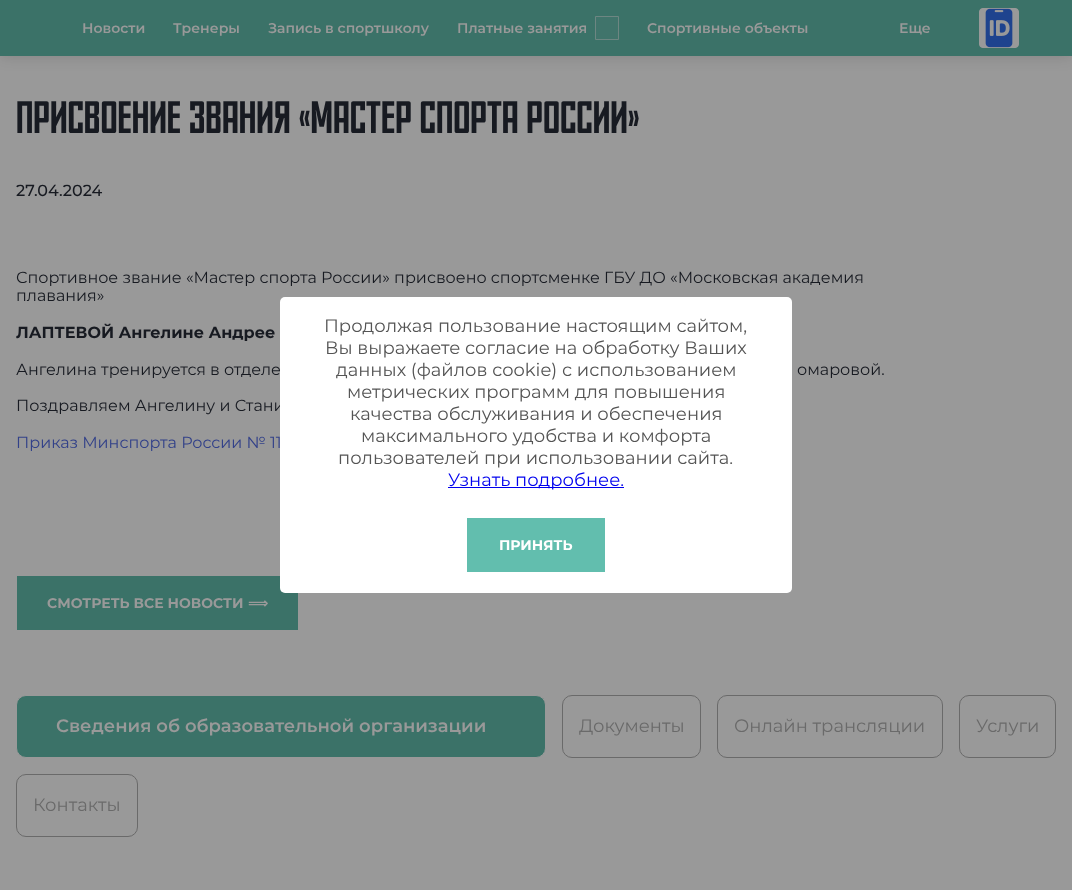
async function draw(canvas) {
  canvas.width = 1072
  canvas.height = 890
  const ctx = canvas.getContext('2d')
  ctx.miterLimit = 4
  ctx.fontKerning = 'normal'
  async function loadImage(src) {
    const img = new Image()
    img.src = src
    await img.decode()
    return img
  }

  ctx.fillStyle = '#999'
  ctx.fillRect(0, 0, 1072, 890)
  ctx.fillStyle = '#00000026'
  ctx.filter = 'blur(7.5px)'
  ctx.beginPath()
  ctx.rect(0, 0, 1072, 56)
  ctx.fill()
  ctx.filter = 'none'
  ctx.fillStyle = '#3b7268'
  ctx.fillRect(0, 0, 1072, 56)
  ctx.font = '600 14px Montserrat'
  ctx.fillStyle = '#999'
  ctx.fillText('Новости', 82, 33)
  ctx.fillText('Тренеры', 173, 33)
  ctx.fillText('Запись в спортшколу', 268, 33)
  ctx.fillText('Платные занятия', 457, 33)
  ctx.fillStyle = '#40746b'
  ctx.beginPath()
  ctx.rect(595.5, 16.5, 23, 23)
  ctx.fill()
  ctx.strokeStyle = '#6d8682'
  ctx.stroke()
  ctx.fillStyle = '#999'
  ctx.fillText('Спортивные объекты', 647, 33)
  ctx.fillText('Еще', 899, 33)
  ctx.drawImage(await loadImage('image0.png'), 979, 8, 40, 40)
  ctx.font = '45.5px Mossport'
  ctx.fillStyle = '#171a21'
  ctx.fillText('ПРИСВОЕНИЕ ЗВАНИЯ «МАСТЕР СПОРТА РОССИИ»', 16, 133)
  ctx.font = '500 16px Montserrat'
  ctx.fillText('27.04.2024', 16, 196)
  ctx.font = '16px Montserrat'
  ctx.fillText('Спортивное звание «Мастер спорта России» присвоено спортсменке ГБУ ДО «Московская академия', 16, 283)
  ctx.fillText('плавания»', 16, 301)
  ctx.font = 'bold 16px Montserrat'
  ctx.fillText('ЛАПТЕВОЙ Ангелине Андрее', 16, 338)
  ctx.font = '16px Montserrat'
  ctx.fillText('Ангелина тренируется в отделе', 16, 375)
  ctx.fillText('омаровой.', 797, 375)
  ctx.fillText('Поздравляем Ангелину и Стани', 16, 411)
  ctx.fillStyle = '#324189'
  ctx.fillText('Приказ Минспорта России № 11', 16, 448)
  ctx.fillStyle = '#3b7268'
  ctx.fillRect(17, 576, 281, 54)
  ctx.font = 'bold 14px Montserrat'
  ctx.fillStyle = '#999'
  ctx.fillText('СМОТРЕТЬ ВСЕ НОВОСТИ', 47, 608)
  ctx.font = 'bold 14px DejaVu Sans'
  ctx.fillText('⟹', 248, 608)
  ctx.fillStyle = '#3b7268'
  ctx.beginPath()
  ctx.roundRect(16.5, 695.5, 529, 62, 9.5)
  ctx.fill()
  ctx.strokeStyle = '#999'
  ctx.stroke()
  ctx.font = '600 18px Montserrat'
  ctx.fillStyle = '#999'
  ctx.fillText('Сведения об образовательной организации', 56, 732)
  ctx.beginPath()
  ctx.roundRect(562.5, 695.5, 138, 62, 9.5)
  ctx.strokeStyle = '#6a6a6a'
  ctx.stroke()
  ctx.font = '18px Montserrat'
  ctx.fillStyle = '#6a6a6a'
  ctx.fillText('Документы', 579, 732)
  ctx.beginPath()
  ctx.roundRect(717.5, 695.5, 225, 62, 9.5)
  ctx.stroke()
  ctx.fillText('Онлайн трансляции', 734, 732)
  ctx.beginPath()
  ctx.roundRect(959.5, 695.5, 96, 62, 9.5)
  ctx.stroke()
  ctx.fillText('Услуги', 976, 732)
  ctx.beginPath()
  ctx.roundRect(16.5, 774.5, 121, 62, 9.5)
  ctx.stroke()
  ctx.fillText('Контакты', 33, 811)
  ctx.fillStyle = '#fff'
  ctx.beginPath()
  ctx.roundRect(280, 297, 512, 296, 5)
  ctx.fill()
  ctx.fillStyle = '#545454'
  ctx.fillText('Продолжая пользование настоящим сайтом,', 324, 332)
  ctx.fillText('Вы выражаете согласие на обработку Ваших', 325, 354)
  ctx.fillText('данных (файлов cookie) с использованием', 336, 376)
  ctx.fillText('метрических программ для повышения', 347, 398)
  ctx.fillText('качества обслуживания и обеспечения', 350, 420)
  ctx.fillText('максимального удобства и комфорта', 361, 442)
  ctx.fillText('пользователей при использовании сайта.', 338, 464)
  ctx.fillStyle = '#00e'
  ctx.fillRect(448, 487, 176, 1)
  ctx.fillText('Узнать подробнее.', 448, 486)
  ctx.fillStyle = '#62beae'
  ctx.fillRect(467, 518, 138, 54)
  ctx.font = 'bold 14px Montserrat'
  ctx.fillStyle = '#fff'
  ctx.fillText('ПРИНЯТЬ', 499, 550)
}

draw(document.querySelector('canvas'))
